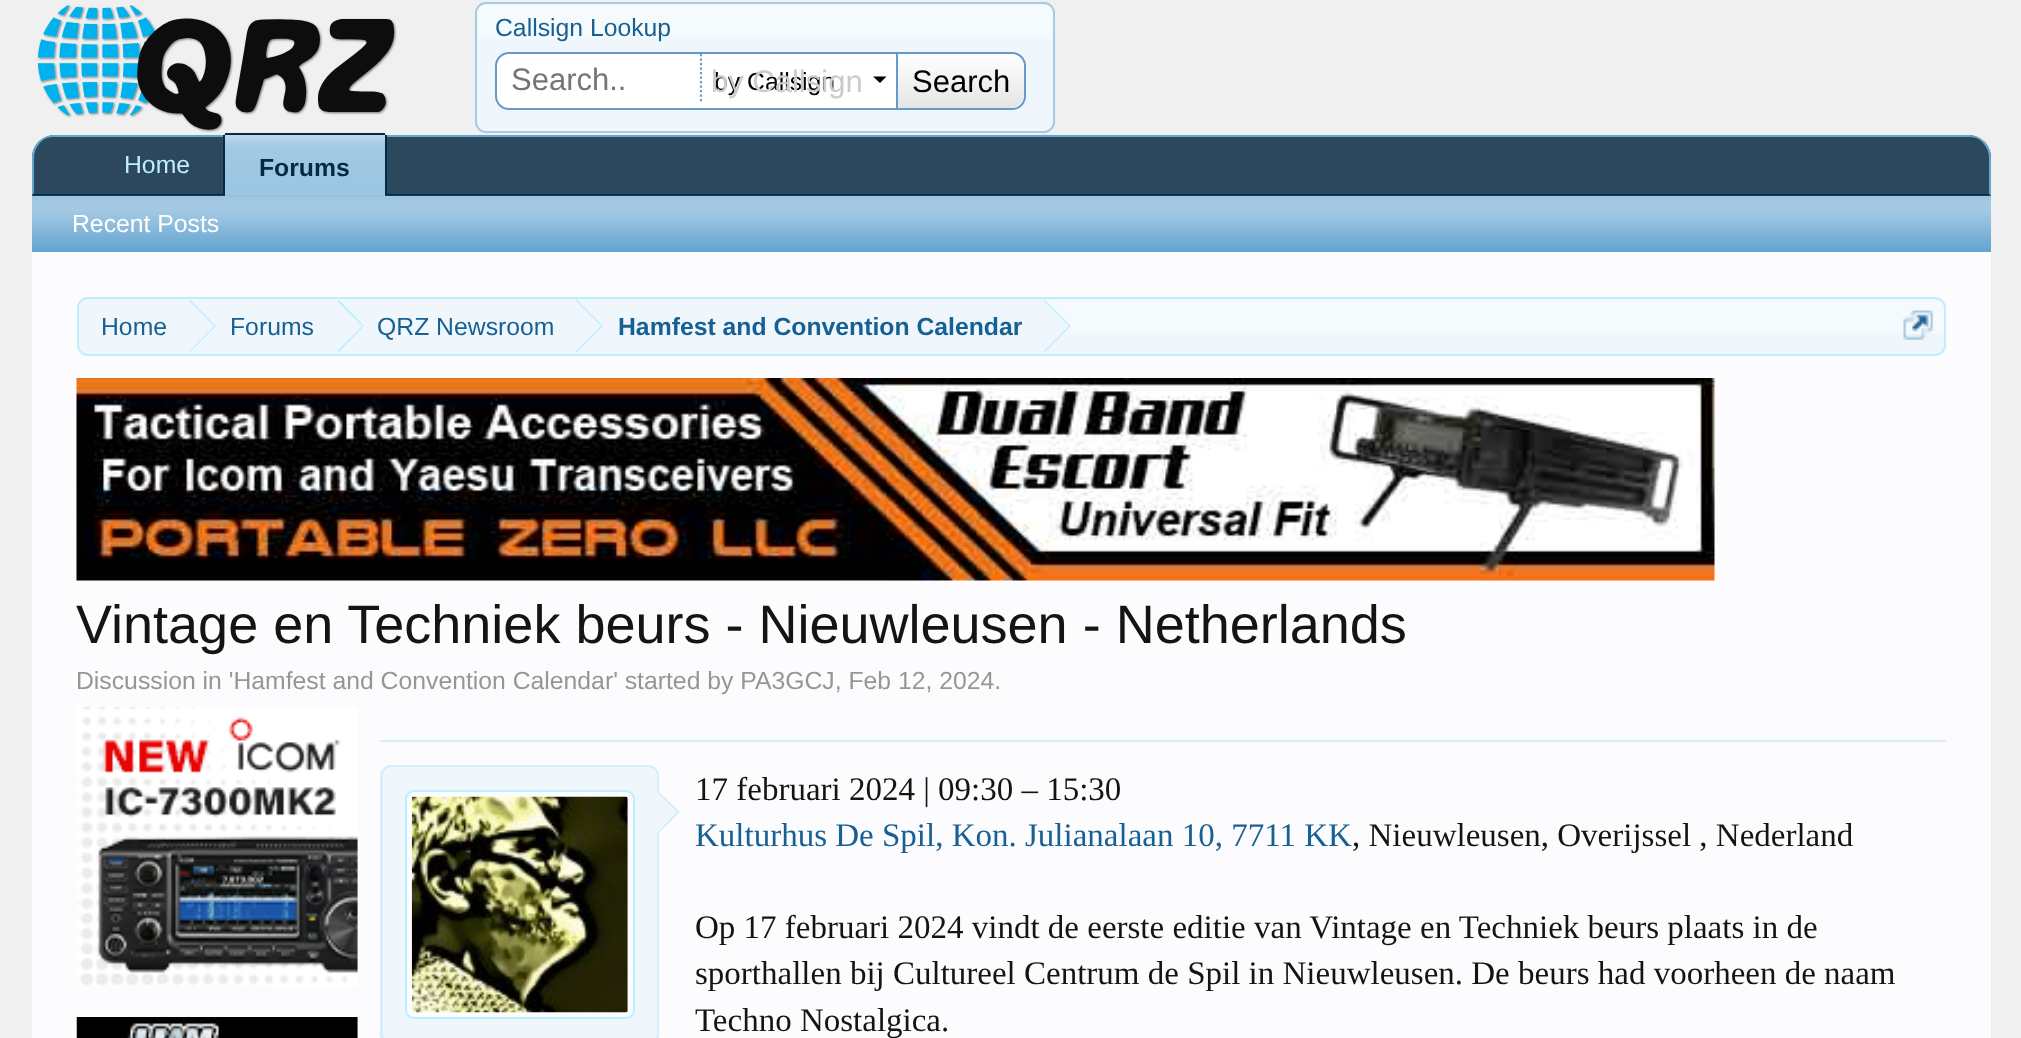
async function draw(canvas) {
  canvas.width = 2021
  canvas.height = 1038
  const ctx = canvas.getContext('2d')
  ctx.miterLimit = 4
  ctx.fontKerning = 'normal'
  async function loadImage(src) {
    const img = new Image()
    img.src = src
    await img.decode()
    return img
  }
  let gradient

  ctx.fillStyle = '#f0f0f0'
  ctx.fillRect(0, 0, 2021, 1038)
  ctx.drawImage(await loadImage('image0.png'), 37, 5, 360, 128)
  ctx.fillStyle = '#f0f7fc'
  ctx.beginPath()
  ctx.roundRect(475, 2, 580, 131, 11)
  ctx.fill()
  ctx.drawImage(await loadImage('image1.png'), 475, 5, 580, 34)
  ctx.beginPath()
  ctx.roundRect(476, 3, 578, 129, 10)
  ctx.strokeStyle = '#a5cae4'
  ctx.lineWidth = 2
  ctx.stroke()
  ctx.font = '24.75px Liberation Sans'
  ctx.fillStyle = '#176093'
  ctx.fillText('Callsign Lookup', 495, 36)
  ctx.fillStyle = '#fff'
  ctx.beginPath()
  ctx.roundRect(496, 53, 529, 56, 13)
  ctx.fill()
  ctx.strokeStyle = '#69c'
  ctx.stroke()
  ctx.beginPath()
  ctx.moveTo(701, 54)
  ctx.lineTo(701, 103.5)
  ctx.lineWidth = 2.2
  ctx.setLineDash([2.25, 2.25])
  ctx.stroke()
  ctx.font = '31px Liberation Sans'
  ctx.fillStyle = '#757575'
  ctx.fillText('Search..', 511, 90)
  ctx.font = '24.75px Liberation Sans'
  ctx.fillStyle = '#000'
  ctx.fillText('by Callsign', 714, 90)
  ctx.font = '31px Liberation Sans'
  ctx.fillStyle = '#cbcbcb'
  ctx.fillText('by Callsign', 711, 92)
  ctx.fillStyle = '#fff'
  ctx.fillRect(702, 54, 1, 48)
  ctx.fillStyle = '#69c'
  ctx.fillRect(896, 54, 2, 54)
  ctx.fillStyle = '#000'
  ctx.beginPath()
  ctx.moveTo(873, 76.5)
  ctx.lineTo(886.5, 76.5)
  ctx.lineTo(880, 83)
  ctx.closePath()
  ctx.fill()
  gradient = ctx.createLinearGradient(961, 54, 961, 108)
  gradient.addColorStop(0, '#fff')
  gradient.addColorStop(1, '#e5e5e5')
  ctx.fillStyle = gradient
  ctx.beginPath()
  ctx.roundRect(898, 54, 126, 54, [0, 14, 14, 0])
  ctx.fill()
  ctx.fillStyle = '#000'
  ctx.fillText('Search', 912, 92)
  ctx.fillStyle = '#2b485c'
  ctx.beginPath()
  ctx.roundRect(32, 135, 1959, 61, [23, 23, 0, 0])
  ctx.fill()
  ctx.fillStyle = '#65a5d1'
  ctx.beginPath()
  ctx.moveTo(54, 135)
  ctx.bezierCurveTo(48, 135, 42, 138, 38, 142)
  ctx.lineTo(40, 143)
  ctx.bezierCurveTo(43, 139, 48, 137, 54, 137)
  ctx.lineTo(1969, 137)
  ctx.bezierCurveTo(1975, 137, 1980, 139, 1983, 143)
  ctx.lineTo(1985, 142)
  ctx.bezierCurveTo(1981, 138, 1975, 135, 1969, 135)
  ctx.closePath()
  ctx.fill()
  ctx.beginPath()
  ctx.moveTo(1985, 142)
  ctx.bezierCurveTo(1989, 146, 1991, 152, 1991, 158)
  ctx.lineTo(1991, 196)
  ctx.lineTo(1989, 194)
  ctx.lineTo(1989, 158)
  ctx.bezierCurveTo(1989, 152, 1987, 147, 1983, 143)
  ctx.closePath()
  ctx.fill()
  ctx.fillStyle = '#032a46'
  ctx.beginPath()
  ctx.moveTo(32, 196)
  ctx.lineTo(34, 193)
  ctx.lineTo(34, 194)
  ctx.lineTo(1989, 194)
  ctx.lineTo(1991, 196)
  ctx.closePath()
  ctx.fill()
  ctx.fillStyle = '#65a5d1'
  ctx.beginPath()
  ctx.moveTo(38, 142)
  ctx.bezierCurveTo(34, 146, 32, 152, 32, 158)
  ctx.lineTo(32, 195)
  ctx.lineTo(34, 193)
  ctx.lineTo(34, 158)
  ctx.bezierCurveTo(34, 152, 36, 147, 40, 143)
  ctx.closePath()
  ctx.fill()
  ctx.font = '24.75px Liberation Sans'
  ctx.fillStyle = '#bfeeff'
  ctx.fillText('Home', 124, 173)
  ctx.fillStyle = '#65a5d1'
  ctx.beginPath()
  ctx.roundRect(223, 133, 164, 63, [5, 5, 0, 0])
  ctx.fill()
  ctx.drawImage(await loadImage('image2.png'), 222, 135, 163, 61)
  ctx.fillStyle = '#032a46'
  ctx.fillRect(225, 133, 160, 2)
  ctx.fillRect(385, 135, 2, 61)
  ctx.fillRect(223, 135, 2, 61)
  ctx.font = 'bold 24.75px Liberation Sans'
  ctx.fillText('Forums', 259, 176)
  ctx.fillStyle = '#65a5d1'
  ctx.fillRect(32, 196, 1959, 56)
  ctx.drawImage(await loadImage('image3.png'), 32, 195, 1959, 54)
  ctx.font = '24.75px Liberation Sans'
  ctx.fillStyle = '#fff'
  ctx.fillText('Recent Posts', 72, 232)
  ctx.fillStyle = '#fcfcff'
  ctx.fillRect(32, 252, 1959, 786)
  ctx.fillStyle = '#f0f7fc'
  ctx.beginPath()
  ctx.roundRect(77, 297, 1869, 59, 11)
  ctx.fill()
  ctx.drawImage(await loadImage('image4.png'), 77, 300, 1869, 34)
  ctx.beginPath()
  ctx.roundRect(78, 298, 1867, 57, 10)
  ctx.strokeStyle = '#bfeeff'
  ctx.lineWidth = 2
  ctx.setLineDash([])
  ctx.stroke()
  ctx.save()
  ctx.beginPath()
  ctx.roundRect(79, 299, 1865, 54, 9)
  ctx.clip()
  ctx.beginPath()
  ctx.roundRect(79, 299, 110, 57, [11, 0, 0, 11])
  ctx.fill()
  ctx.restore()
  ctx.fillStyle = '#176093'
  ctx.fillText('Home', 101, 335)
  ctx.fillStyle = '#f0f7fc'
  ctx.fillRect(189, 300, 855, 34)
  ctx.fillStyle = '#bfeeff'
  ctx.beginPath()
  ctx.moveTo(189, 353)
  ctx.lineTo(189, 299)
  ctx.lineTo(216, 326)
  ctx.closePath()
  ctx.fill()
  ctx.fillStyle = '#f0f7fc'
  ctx.beginPath()
  ctx.moveTo(187, 353)
  ctx.lineTo(187, 299)
  ctx.lineTo(214, 326)
  ctx.closePath()
  ctx.fill()
  ctx.fillStyle = '#176093'
  ctx.fillText('Forums', 230, 335)
  ctx.fillStyle = '#bfeeff'
  ctx.beginPath()
  ctx.moveTo(338, 353)
  ctx.lineTo(338, 299)
  ctx.lineTo(364, 326)
  ctx.closePath()
  ctx.fill()
  ctx.fillStyle = '#f0f7fc'
  ctx.beginPath()
  ctx.moveTo(335, 353)
  ctx.lineTo(335, 299)
  ctx.lineTo(362, 326)
  ctx.closePath()
  ctx.fill()
  ctx.fillStyle = '#176093'
  ctx.fillText('QRZ Newsroom', 377, 335)
  ctx.fillStyle = '#bfeeff'
  ctx.beginPath()
  ctx.moveTo(576, 353)
  ctx.lineTo(576, 299)
  ctx.lineTo(603, 326)
  ctx.closePath()
  ctx.fill()
  ctx.fillStyle = '#f0f7fc'
  ctx.beginPath()
  ctx.moveTo(574, 353)
  ctx.lineTo(574, 299)
  ctx.lineTo(601, 326)
  ctx.closePath()
  ctx.fill()
  ctx.font = 'bold 24.75px Liberation Sans'
  ctx.fillStyle = '#176093'
  ctx.fillText('Hamfest and Convention Calendar', 618, 335)
  ctx.fillStyle = '#bfeeff'
  ctx.beginPath()
  ctx.moveTo(1044, 353)
  ctx.lineTo(1044, 299)
  ctx.lineTo(1071, 326)
  ctx.closePath()
  ctx.fill()
  ctx.fillStyle = '#f0f7fc'
  ctx.beginPath()
  ctx.moveTo(1042, 353)
  ctx.lineTo(1042, 299)
  ctx.lineTo(1069, 326)
  ctx.closePath()
  ctx.fill()
  ctx.drawImage(await loadImage('image5.png'), 1903, 310, 30, 30)
  ctx.drawImage(await loadImage('image6.png'), 76, 378, 1639, 203)
  ctx.font = '54px Liberation Sans'
  ctx.fillStyle = '#141414'
  ctx.fillText('Vintage en Techniek beurs - Nieuwleusen - Netherlands', 76, 643)
  ctx.font = '24.75px Liberation Sans'
  ctx.fillStyle = '#969696'
  ctx.fillText('Discussion in \'Hamfest and Convention Calendar\' started by PA3GCJ, Feb 12, 2024.', 76, 689)
  ctx.drawImage(await loadImage('image7.png'), 77, 706, 281, 280)
  ctx.drawImage(await loadImage('image8.png'), 76, 1017, 282, 21)
  ctx.fillStyle = '#d7edfc'
  ctx.fillRect(380, 740, 1566, 2)
  ctx.beginPath()
  ctx.roundRect(381, 766, 277, 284, 10)
  ctx.fill()
  ctx.strokeStyle = '#d7edfc'
  ctx.stroke()
  ctx.fillStyle = '#f0f7fc'
  ctx.beginPath()
  ctx.roundRect(383, 767, 274, 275, 9)
  ctx.fill()
  ctx.fillStyle = '#fcfcff'
  ctx.beginPath()
  ctx.roundRect(406, 791, 228, 227, 8)
  ctx.fill()
  ctx.strokeStyle = '#bfeeff'
  ctx.stroke()
  ctx.drawImage(await loadImage('image9.png'), 411, 796, 217, 217)
  ctx.fillStyle = '#d7edfc'
  ctx.beginPath()
  ctx.moveTo(657, 835)
  ctx.lineTo(657, 790)
  ctx.lineTo(680, 812)
  ctx.closePath()
  ctx.fill()
  ctx.fillStyle = '#f0f7fc'
  ctx.beginPath()
  ctx.moveTo(655, 835)
  ctx.lineTo(655, 790)
  ctx.lineTo(677, 812)
  ctx.closePath()
  ctx.fill()
  ctx.font = '33px Liberation Serif'
  ctx.fillStyle = '#141414'
  ctx.fillText('17 februari 2024 | 09:30 – 15:30', 695, 800)
  ctx.fillStyle = '#176093'
  ctx.fillText('Kulturhus De Spil, Kon. Julianalaan 10, 7711 KK', 695, 846)
  ctx.fillStyle = '#141414'
  ctx.fillText(', Nieuwleusen, Overijssel , Nederland', 1352, 846)
  ctx.fillText('Op 17 februari 2024 vindt de eerste editie van Vintage en Techniek beurs plaats in de', 695, 938)
  ctx.fillText('sporthallen bij Cultureel Centrum de Spil in Nieuwleusen. De beurs had voorheen de naam', 695, 984)
  ctx.fillText('Techno Nostalgica.', 695, 1031)
}

draw(document.querySelector('canvas'))
